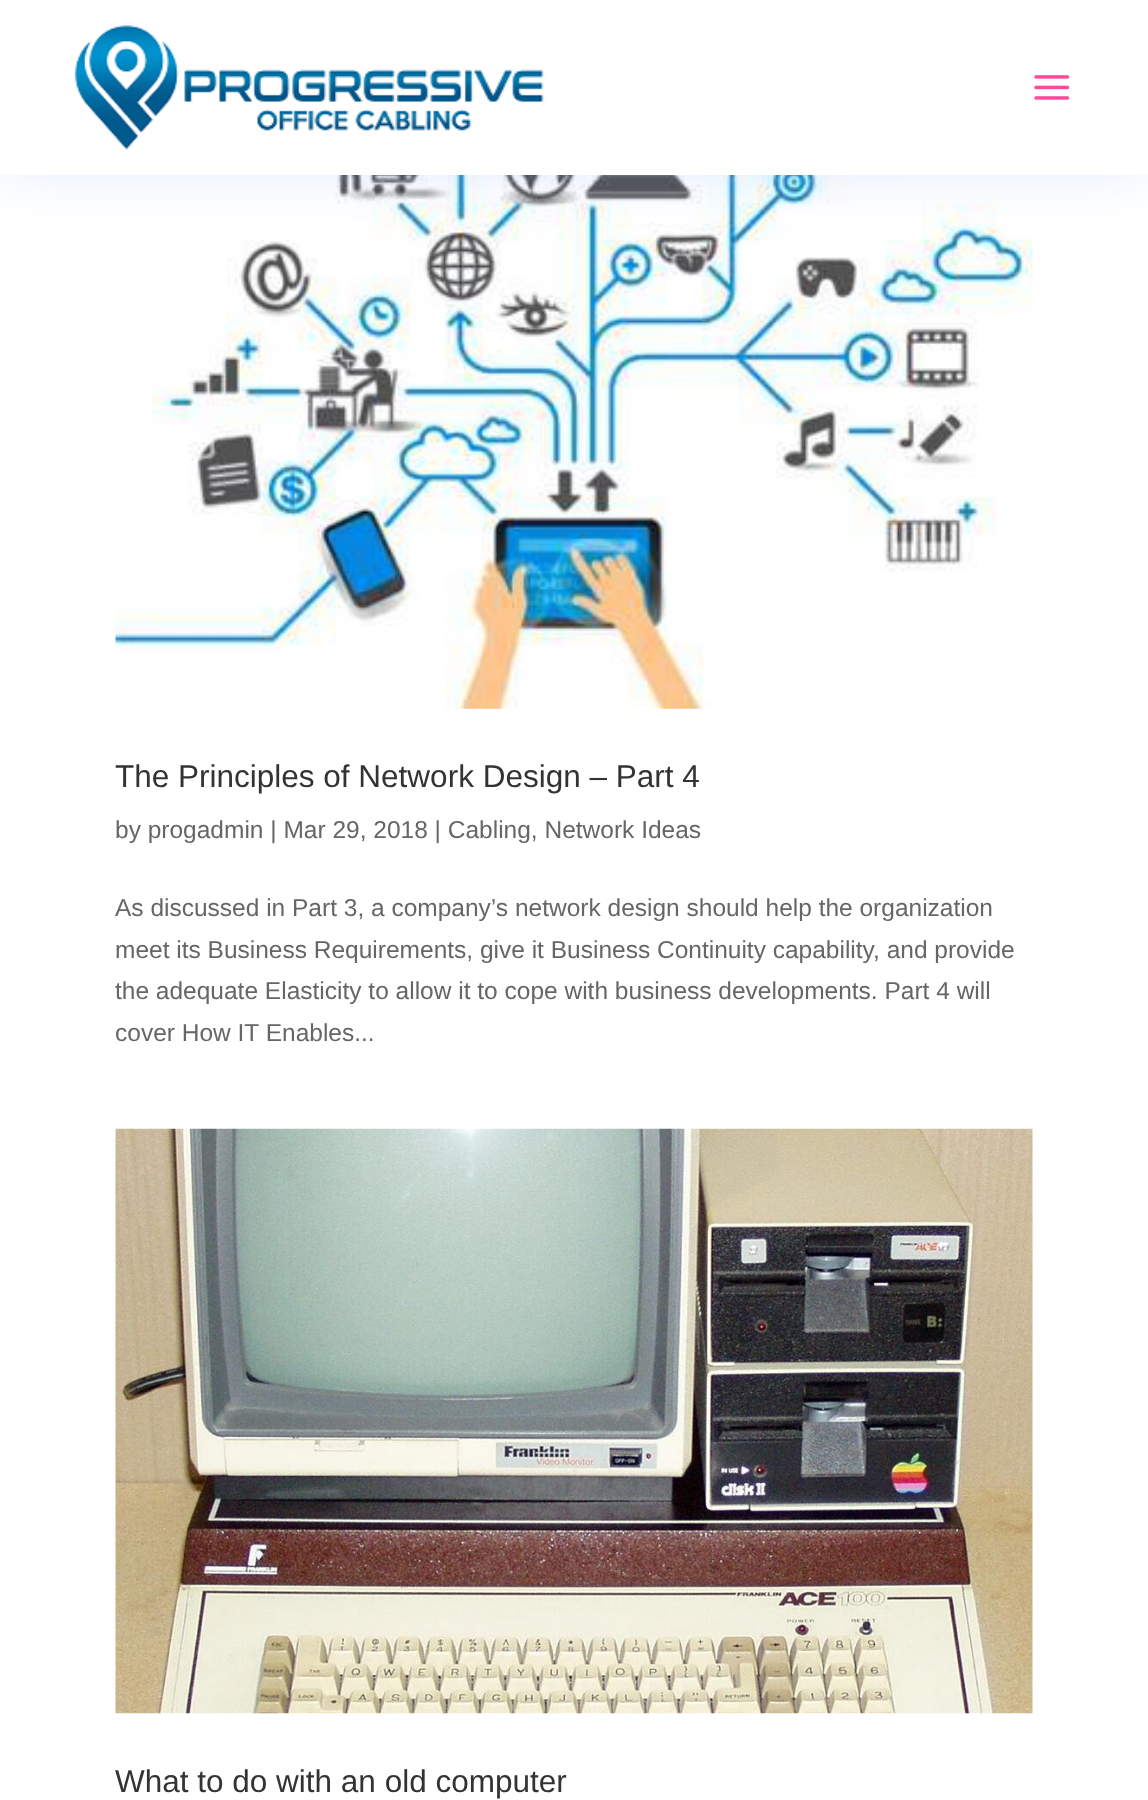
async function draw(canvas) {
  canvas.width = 1148
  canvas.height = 1800
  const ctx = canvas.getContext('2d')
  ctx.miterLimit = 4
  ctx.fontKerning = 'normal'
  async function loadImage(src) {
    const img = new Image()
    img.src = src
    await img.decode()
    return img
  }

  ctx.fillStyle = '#fff'
  ctx.fillRect(0, 0, 1148, 1800)
  ctx.drawImage(await loadImage('image2.png'), 115, 175, 918, 534)
  ctx.fillStyle = '#6797ff2b'
  ctx.filter = 'blur(26px)'
  ctx.beginPath()
  ctx.rect(0, 0, 1148, 175)
  ctx.fill()
  ctx.filter = 'none'
  ctx.fillStyle = '#fff'
  ctx.fillRect(0, 0, 1148, 175)
  ctx.drawImage(await loadImage('image0.png'), 74, 25, 471, 125)
  ctx.drawImage(await loadImage('image1.png'), 1034, 75, 36, 25)
  ctx.font = '31.5px Liberation Sans'
  ctx.fillStyle = '#333'
  ctx.fillText('The Principles of Network Design – Part 4', 115, 787)
  ctx.font = '24.5px Liberation Sans'
  ctx.fillStyle = '#666'
  ctx.fillText('by progadmin | Mar 29, 2018 | Cabling, Network Ideas', 115, 838)
  ctx.fillText('As discussed in Part 3, a company’s network design should help the organization', 115, 916)
  ctx.fillText('meet its Business Requirements, give it Business Continuity capability, and provide', 115, 958)
  ctx.fillText('the adequate Elasticity to allow it to cope with business developments. Part 4 will', 115, 999)
  ctx.fillText('cover How IT Enables...', 115, 1041)
  ctx.drawImage(await loadImage('image3.png'), 115, 1128, 918, 586)
  ctx.font = '31.5px Liberation Sans'
  ctx.fillStyle = '#333'
  ctx.fillText('What to do with an old computer', 115, 1792)
}

draw(document.querySelector('canvas'))
